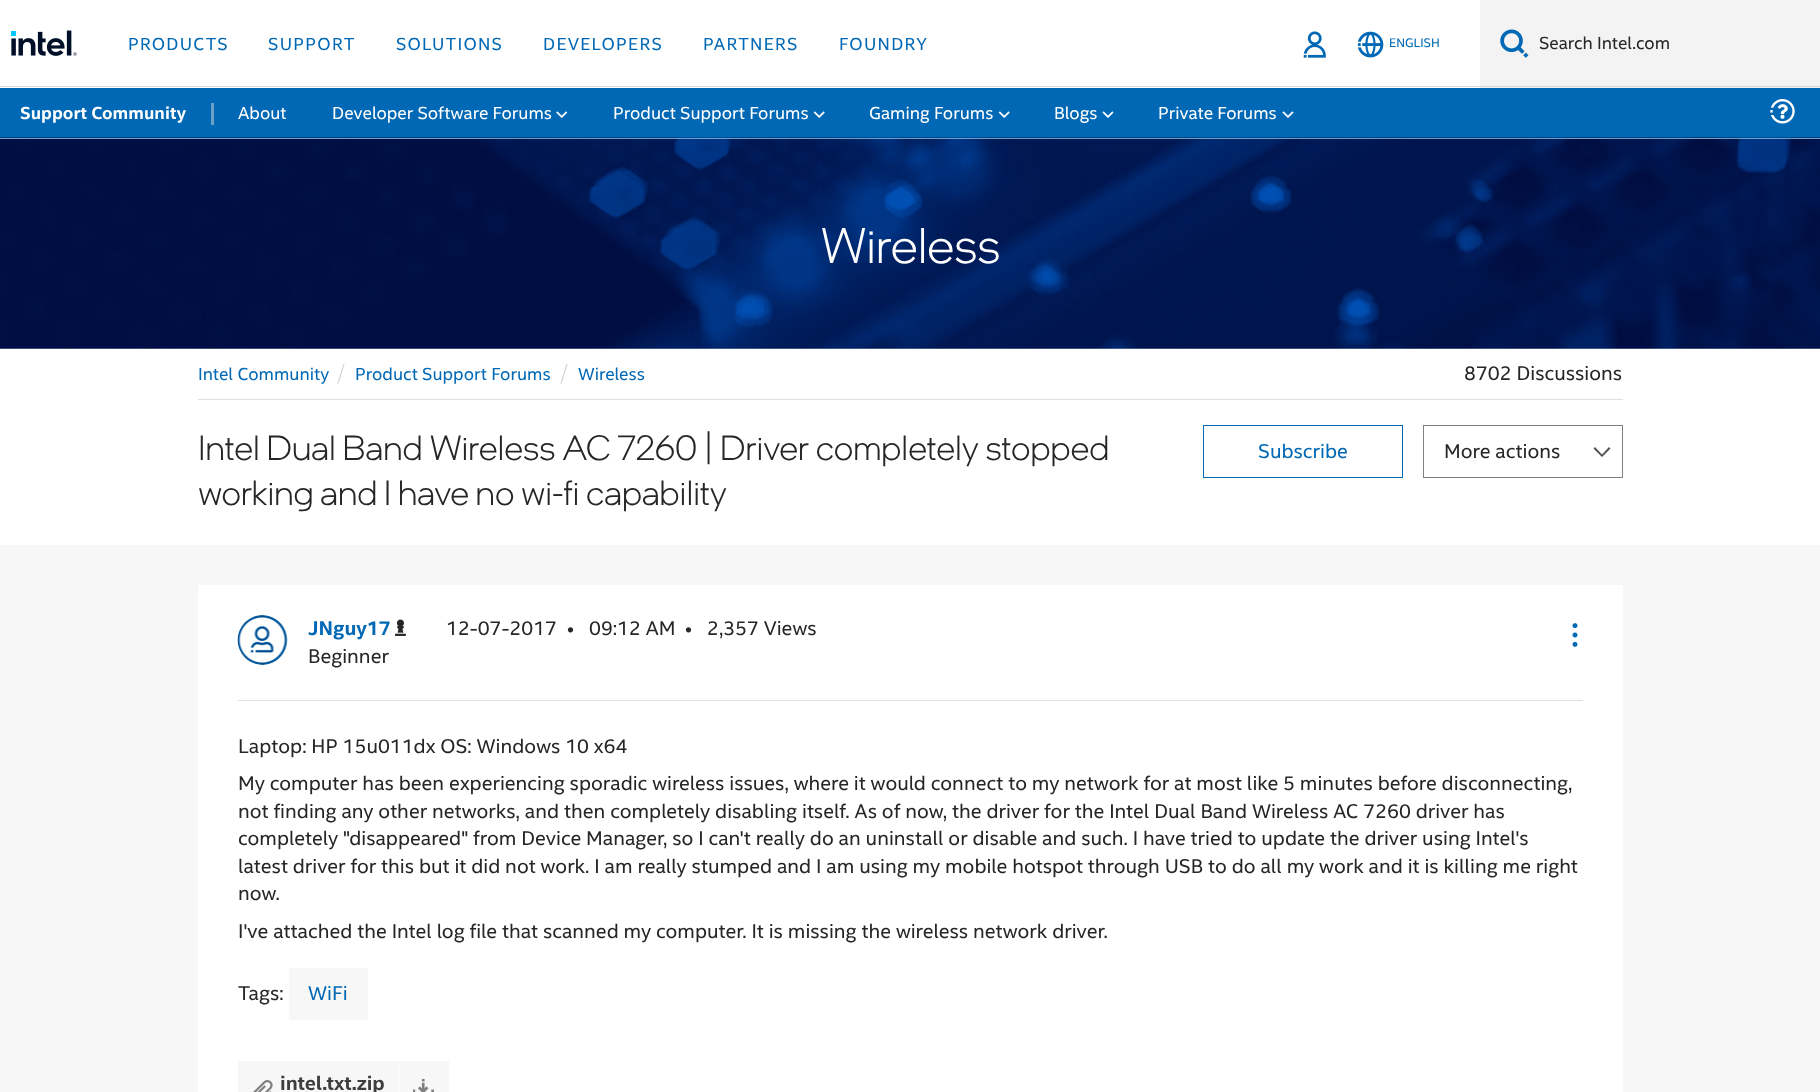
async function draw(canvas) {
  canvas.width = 1820
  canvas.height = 1092
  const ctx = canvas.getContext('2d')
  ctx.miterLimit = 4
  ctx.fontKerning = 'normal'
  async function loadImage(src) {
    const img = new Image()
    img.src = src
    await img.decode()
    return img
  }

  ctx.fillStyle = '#f7f7f7'
  ctx.fillRect(0, 0, 1820, 1092)
  ctx.fillStyle = '#fff'
  ctx.fillRect(0, 0, 1480, 88)
  ctx.fillStyle = '#d7d7d7'
  ctx.fillRect(0, 86, 1480, 1)
  ctx.drawImage(await loadImage('image0.png'), 11, 30, 66, 26)
  ctx.letterSpacing = '1.25px'
  ctx.font = '17.5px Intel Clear'
  ctx.fillStyle = '#0068b5'
  ctx.fillText('PRODUCTS', 128, 50)
  ctx.fillText('SUPPORT', 268, 50)
  ctx.fillText('SOLUTIONS', 396, 50)
  ctx.fillText('DEVELOPERS', 543, 50)
  ctx.fillText('PARTNERS', 703, 50)
  ctx.fillText('FOUNDRY', 839, 50)
  ctx.drawImage(await loadImage('image1.png'), 1303, 31, 23, 27)
  ctx.drawImage(await loadImage('image2.png'), 1357, 31, 27, 27)
  ctx.letterSpacing = '0px'
  ctx.font = '12.5px Intel Clear'
  ctx.fillText('ENGLISH', 1389, 47)
  ctx.fillStyle = '#f3f3f3'
  ctx.fillRect(1480, 0, 340, 88)
  ctx.fillStyle = '#d7d7d7'
  ctx.fillRect(1480, 86, 340, 1)
  ctx.drawImage(await loadImage('image3.png'), 1500, 29, 29, 29)
  ctx.font = '17.5px Intel Clear'
  ctx.fillStyle = '#262626'
  ctx.fillText('Search Intel.com', 1539, 49)
  ctx.fillStyle = '#0068b5'
  ctx.fillRect(0, 88, 1820, 50)
  ctx.font = 'bold 17.5px Intel Clear'
  ctx.fillStyle = '#fff'
  ctx.fillText('Support Community', 20, 119)
  ctx.fillStyle = '#6ca0c6'
  ctx.fillRect(211, 103, 3, 22)
  ctx.font = '17.5px Intel Clear'
  ctx.fillStyle = '#fff'
  ctx.fillText('About', 238, 119)
  ctx.fillText('Developer Software Forums', 332, 119)
  ctx.drawImage(await loadImage('image4.png'), 556, 111, 12, 7)
  ctx.fillText('Product Support Forums', 613, 119)
  ctx.drawImage(await loadImage('image5.png'), 813, 111, 12, 7)
  ctx.fillText('Gaming Forums', 869, 119)
  ctx.drawImage(await loadImage('image5.png'), 998, 111, 12, 7)
  ctx.fillText('Blogs', 1054, 119)
  ctx.drawImage(await loadImage('image6.png'), 1102, 111, 12, 7)
  ctx.fillText('Private Forums', 1158, 119)
  ctx.drawImage(await loadImage('image6.png'), 1282, 111, 12, 7)
  ctx.drawImage(await loadImage('image7.png'), 1770, 99, 25, 25)
  ctx.fillRect(0, 348, 1820, 197)
  ctx.drawImage(await loadImage('image8.png'), 0, 137, 1820, 212)
  ctx.fillStyle = '#6ca0c6'
  ctx.fillRect(0, 138, 1820, 1)
  ctx.font = '300 50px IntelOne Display'
  ctx.fillStyle = '#fff'
  ctx.fillText('Wireless', 820, 263)
  ctx.font = '17.5px Intel Clear'
  ctx.fillStyle = '#0068b5'
  ctx.fillText('Intel Community', 198, 380)
  ctx.font = '300 22px Intel Clear'
  ctx.fillStyle = '#d7d7d7'
  ctx.fillText('/', 337, 380)
  ctx.font = '17.5px Intel Clear'
  ctx.fillStyle = '#0068b5'
  ctx.fillText('Product Support Forums', 355, 380)
  ctx.font = '300 22px Intel Clear'
  ctx.fillStyle = '#d7d7d7'
  ctx.fillText('/', 560, 380)
  ctx.font = '17.5px Intel Clear'
  ctx.fillStyle = '#0068b5'
  ctx.fillText('Wireless', 578, 380)
  ctx.font = '20px Intel Clear'
  ctx.fillStyle = '#262626'
  ctx.fillText('8702 Discussions', 1464, 380)
  ctx.fillStyle = '#e0e0e0'
  ctx.fillRect(198, 399, 1425, 1)
  ctx.font = '300 35px IntelOne Display'
  ctx.fillStyle = '#262626'
  ctx.fillText('Intel Dual Band Wireless AC 7260 | Driver completely stopped', 198, 460)
  ctx.fillText('working and I have no wi-fi capability', 198, 505)
  ctx.strokeStyle = '#0068b5'
  ctx.strokeRect(1203.5, 425.5, 199, 52)
  ctx.font = '20px Intel Clear'
  ctx.fillStyle = '#0068b5'
  ctx.fillText('Subscribe', 1258, 458)
  ctx.fillStyle = '#525252'
  ctx.beginPath()
  ctx.moveTo(1593.5, 448.5)
  ctx.lineTo(1595, 447)
  ctx.lineTo(1602, 454.5)
  ctx.lineTo(1609, 447)
  ctx.lineTo(1610.5, 448.5)
  ctx.lineTo(1602, 457)
  ctx.closePath()
  ctx.fill('evenodd')
  ctx.strokeStyle = '#808080'
  ctx.strokeRect(1423.5, 425.5, 199, 52)
  ctx.fillStyle = '#262626'
  ctx.fillText('More actions', 1444, 458)
  ctx.fillStyle = '#fff'
  ctx.fillRect(198, 585, 1425, 507)
  ctx.fillStyle = '#e0e0e0'
  ctx.fillRect(238, 700, 1345, 1)
  ctx.drawImage(await loadImage('image9.png'), 237, 615, 51, 50)
  ctx.font = 'bold 20px Intel Clear'
  ctx.fillStyle = '#0068b5'
  ctx.fillText('JNguy17', 308, 635)
  ctx.drawImage(await loadImage('image10.png'), 395, 619, 11, 17)
  ctx.font = '20px Intel Clear'
  ctx.fillStyle = '#262626'
  ctx.fillText('Beginner', 308, 663)
  ctx.fillText('12-07-2017', 446, 635)
  ctx.fillText('•', 567, 635)
  ctx.fillText('09:12 AM', 589, 635)
  ctx.fillText('•', 685, 635)
  ctx.fillText('2,357 Views', 707, 635)
  ctx.drawImage(await loadImage('image11.png'), 1572, 623, 6, 24)
  ctx.fillText('Laptop: HP 15u011dx OS: Windows 10 x64', 238, 753)
  ctx.fillText('My computer has been experiencing sporadic wireless issues, where it would connect to my network for at most like 5 minutes before disconnecting,', 238, 790)
  ctx.fillText('not finding any other networks, and then completely disabling itself. As of now, the driver for the Intel Dual Band Wireless AC 7260 driver has', 238, 818)
  ctx.fillText('completely "disappeared" from Device Manager, so I can\'t really do an uninstall or disable and such. I have tried to update the driver using Intel\'s', 238, 845)
  ctx.fillText('latest driver for this but it did not work. I am really stumped and I am using my mobile hotspot through USB to do all my work and it is killing me right', 238, 873)
  ctx.fillText('now.', 238, 900)
  ctx.fillText('I\'ve attached the Intel log file that scanned my computer. It is missing the wireless network driver.', 238, 938)
  ctx.fillText('Tags:', 238, 1000)
  ctx.fillStyle = '#f7f7f7'
  ctx.fillRect(289, 968, 79, 52)
  ctx.fillStyle = '#0068b5'
  ctx.fillText('WiFi', 308, 1000)
  ctx.fillStyle = '#f7f7f7'
  ctx.fillRect(238, 1061, 160, 31)
  ctx.drawImage(await loadImage('image12.png'), 253, 1080, 20, 12)
  ctx.fillRect(399, 1061, 50, 31)
  ctx.drawImage(await loadImage('image13.png'), 413, 1079, 21, 13)
  ctx.font = 'bold 20px Intel Clear'
  ctx.fillStyle = '#3e3e3e'
  ctx.fillText('intel.txt.zip', 280, 1090)
}

draw(document.querySelector('canvas'))
